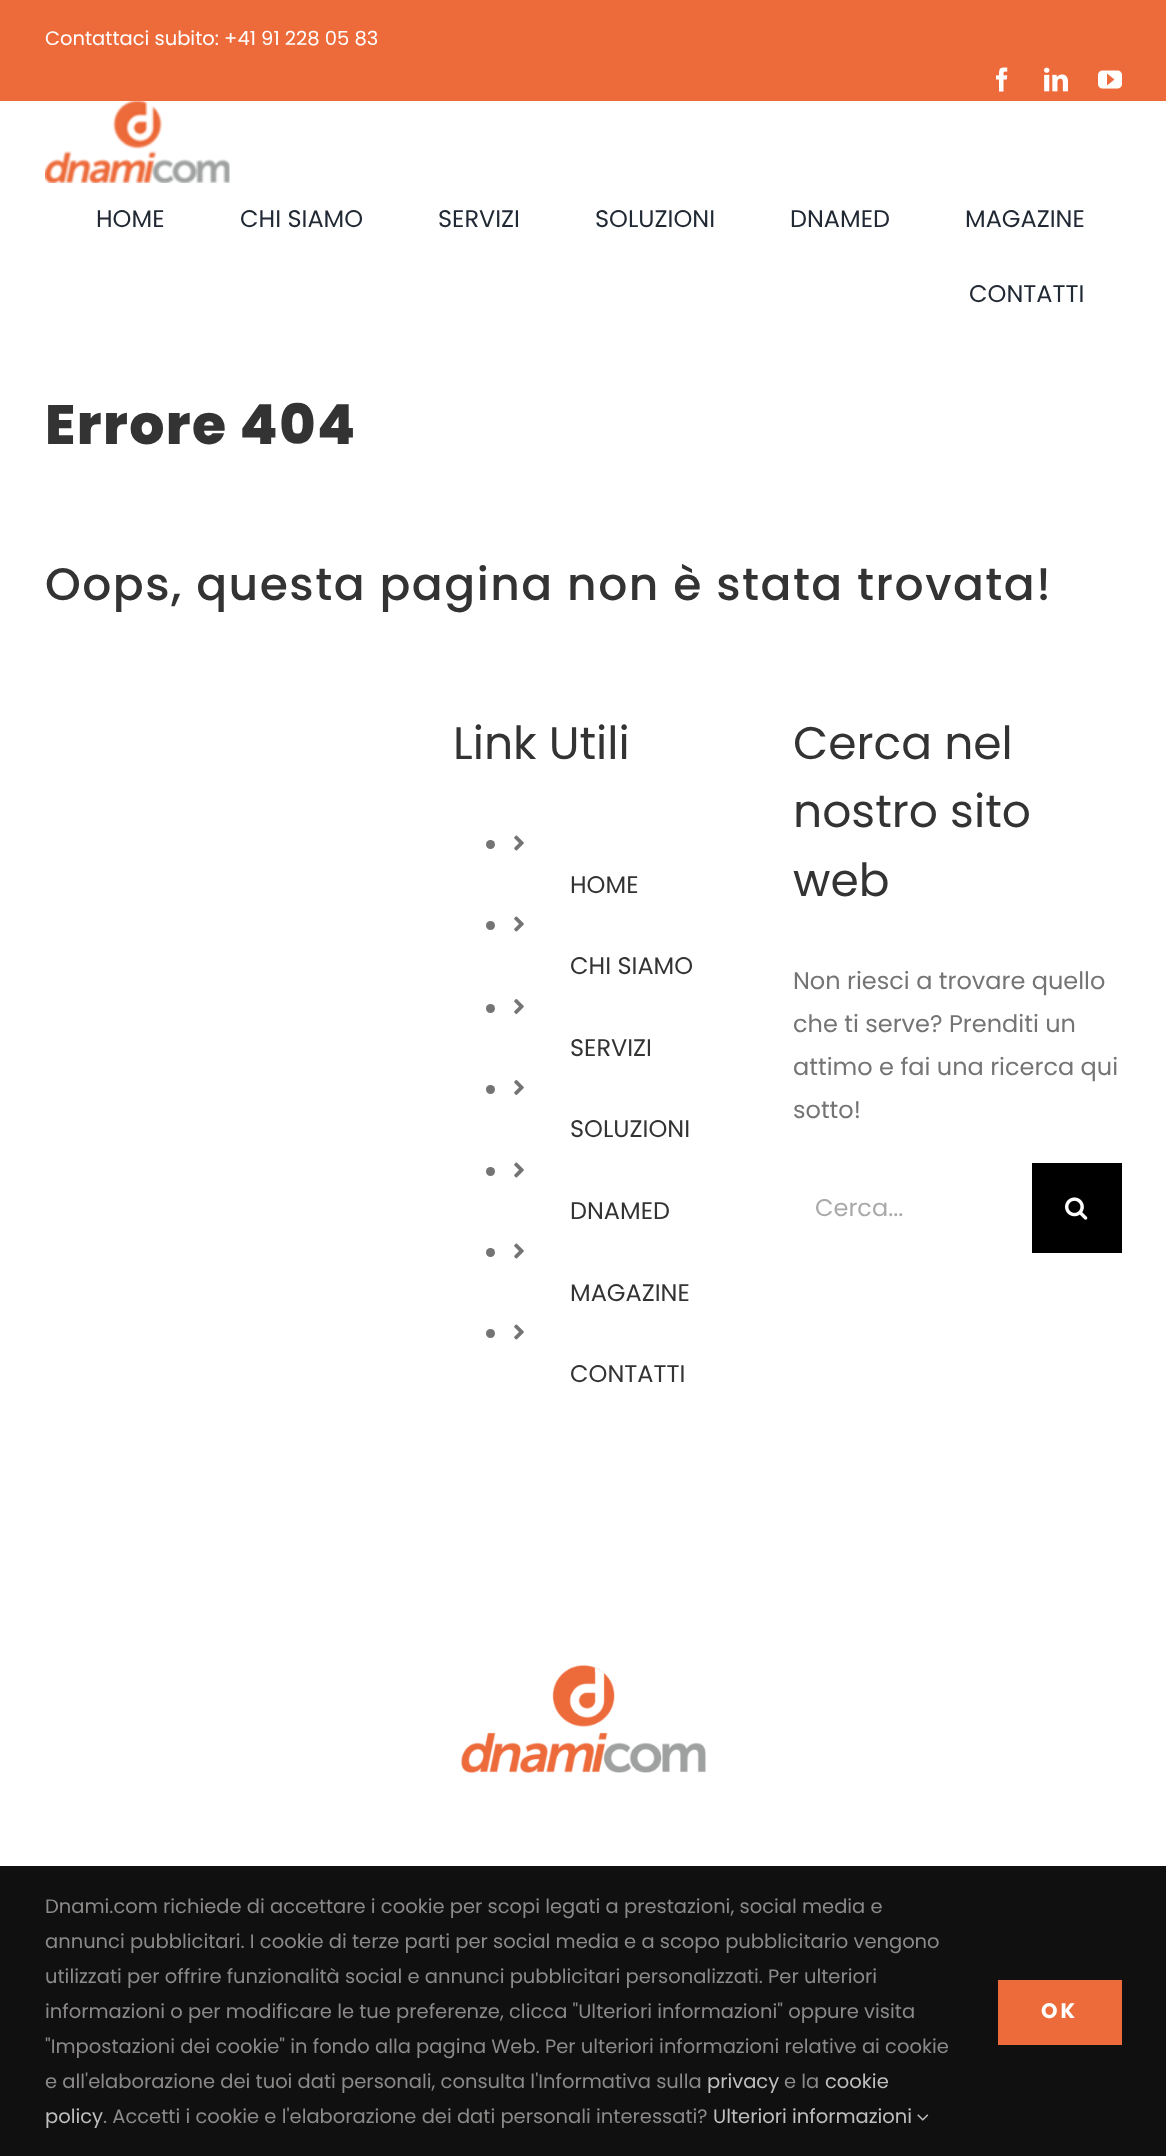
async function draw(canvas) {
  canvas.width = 1166
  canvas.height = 2156
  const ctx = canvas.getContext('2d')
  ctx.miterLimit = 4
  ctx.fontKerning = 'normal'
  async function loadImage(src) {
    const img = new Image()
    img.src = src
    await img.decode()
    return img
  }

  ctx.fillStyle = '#fff'
  ctx.fillRect(0, 0, 1166, 2156)
  ctx.fillStyle = '#ed6b3b'
  ctx.fillRect(0, 0, 1166, 101)
  ctx.font = '19.5px Poppins'
  ctx.fillStyle = '#fff'
  ctx.fillText('Contattaci subito: +41 91 228 05 83', 45, 45)
  ctx.drawImage(await loadImage('image0.png'), 996, 67, 12, 25)
  ctx.drawImage(await loadImage('image1.png'), 1044, 67, 24, 25)
  ctx.drawImage(await loadImage('image2.png'), 1098, 70, 24, 19)
  ctx.drawImage(await loadImage('image3.png'), 45, 100, 185, 83)
  ctx.font = '24px Poppins'
  ctx.fillStyle = '#212934'
  ctx.fillText('HOME', 96, 227)
  ctx.fillText('CHI SIAMO', 240, 227)
  ctx.fillText('SERVIZI', 438, 227)
  ctx.fillText('SOLUZIONI', 595, 227)
  ctx.fillText('DNAMED', 790, 227)
  ctx.fillText('MAGAZINE', 965, 227)
  ctx.fillText('CONTATTI', 969, 302)
  ctx.letterSpacing = '1.5px'
  ctx.font = '800 55.25px Poppins'
  ctx.fillStyle = '#333'
  ctx.fillText('Errore 404', 45, 444)
  ctx.font = '500 45.6px Poppins'
  ctx.fillText('Oops, questa pagina non è stata trovata!', 45, 600)
  ctx.letterSpacing = '0px'
  ctx.font = '45.6px Poppins'
  ctx.fillText('Link Utili', 453, 759)
  ctx.fillStyle = '#747474'
  ctx.beginPath()
  ctx.arc(490.5, 844.5, 4.5, 0, 2 * Math.PI)
  ctx.fill()
  ctx.drawImage(await loadImage('image4.png'), 514, 835, 10, 16)
  ctx.font = '24px Poppins'
  ctx.fillStyle = '#333'
  ctx.fillText('HOME', 570, 893)
  ctx.fillStyle = '#747474'
  ctx.beginPath()
  ctx.arc(490.5, 925.5, 4.5, 0, 2 * Math.PI)
  ctx.fill()
  ctx.drawImage(await loadImage('image4.png'), 514, 916, 10, 16)
  ctx.fillStyle = '#333'
  ctx.fillText('CHI SIAMO', 570, 974)
  ctx.fillStyle = '#747474'
  ctx.beginPath()
  ctx.arc(490.5, 1008.5, 4.5, 0, 2 * Math.PI)
  ctx.fill()
  ctx.drawImage(await loadImage('image5.png'), 514, 999, 10, 15)
  ctx.fillStyle = '#333'
  ctx.fillText('SERVIZI', 570, 1056)
  ctx.fillStyle = '#747474'
  ctx.beginPath()
  ctx.arc(490.5, 1089.5, 4.5, 0, 2 * Math.PI)
  ctx.fill()
  ctx.drawImage(await loadImage('image5.png'), 514, 1080, 10, 15)
  ctx.fillStyle = '#333'
  ctx.fillText('SOLUZIONI', 570, 1137)
  ctx.fillStyle = '#747474'
  ctx.beginPath()
  ctx.arc(490.5, 1171.5, 4.5, 0, 2 * Math.PI)
  ctx.fill()
  ctx.drawImage(await loadImage('image4.png'), 514, 1162, 10, 16)
  ctx.fillStyle = '#333'
  ctx.fillText('DNAMED', 570, 1219)
  ctx.fillStyle = '#747474'
  ctx.beginPath()
  ctx.arc(490.5, 1252.5, 4.5, 0, 2 * Math.PI)
  ctx.fill()
  ctx.drawImage(await loadImage('image4.png'), 514, 1243, 10, 16)
  ctx.fillStyle = '#333'
  ctx.fillText('MAGAZINE', 570, 1301)
  ctx.fillStyle = '#747474'
  ctx.beginPath()
  ctx.arc(490.5, 1333.5, 4.5, 0, 2 * Math.PI)
  ctx.fill()
  ctx.drawImage(await loadImage('image4.png'), 514, 1324, 10, 16)
  ctx.fillStyle = '#333'
  ctx.fillText('CONTATTI', 570, 1382)
  ctx.font = '45.6px Poppins'
  ctx.fillText('Cerca nel', 793, 759)
  ctx.fillText('nostro sito', 793, 827)
  ctx.fillText('web', 793, 896)
  ctx.font = '24px Poppins'
  ctx.fillStyle = '#747474'
  ctx.fillText('Non riesci a trovare quello', 793, 989)
  ctx.fillText('che ti serve? Prenditi un', 793, 1032)
  ctx.fillText('attimo e fai una ricerca qui', 793, 1075)
  ctx.fillText('sotto!', 793, 1118)
  ctx.fillStyle = '#aaa9a9'
  ctx.fillText('Cerca...', 815, 1216)
  ctx.fillStyle = '#000'
  ctx.fillRect(1032, 1163, 90, 90)
  ctx.drawImage(await loadImage('image6.png'), 1065, 1197, 23, 23)
  ctx.drawImage(await loadImage('image7.png'), 461, 1665, 245, 108)
  ctx.fillStyle = '#101010'
  ctx.fillRect(0, 1866, 1166, 290)
  ctx.font = '19.5px Poppins'
  ctx.fillStyle = '#8c8989'
  ctx.fillText('Dnami.com richiede di accettare i cookie per scopi legati a prestazioni, social media e', 45, 1913)
  ctx.fillText('annunci pubblicitari. I cookie di terze parti per social media e a scopo pubblicitario vengono', 45, 1948)
  ctx.fillText('utilizzati per offrire funzionalità social e annunci pubblicitari personalizzati. Per ulteriori', 45, 1983)
  ctx.fillText('informazioni o per modificare le tue preferenze, clicca "Ulteriori informazioni" oppure visita', 45, 2018)
  ctx.fillText('"Impostazioni dei cookie" in fondo alla pagina Web. Per ulteriori informazioni relative ai cookie', 45, 2053)
  ctx.fillText('e all\'elaborazione dei tuoi dati personali, consulta l\'Informativa sulla', 45, 2088)
  ctx.fillStyle = '#bfbfbf'
  ctx.fillText('privacy', 707, 2088)
  ctx.fillStyle = '#8c8989'
  ctx.fillText('e la', 784, 2088)
  ctx.fillStyle = '#bfbfbf'
  ctx.fillText('cookie', 825, 2088)
  ctx.fillText('policy', 45, 2123)
  ctx.fillStyle = '#8c8989'
  ctx.fillText('. Accetti i cookie e l\'elaborazione dei dati personali interessati?', 103, 2123)
  ctx.fillStyle = '#bfbfbf'
  ctx.fillText('Ulteriori informazioni', 713, 2123)
  ctx.drawImage(await loadImage('image8.png'), 917, 2114, 12, 7)
  ctx.fillStyle = '#ed6b3b'
  ctx.fillRect(998, 1980, 124, 65)
  ctx.letterSpacing = '3px'
  ctx.font = 'bold 21px Poppins'
  ctx.fillStyle = '#fff'
  ctx.fillText('OK', 1041, 2018)
}

draw(document.querySelector('canvas'))
